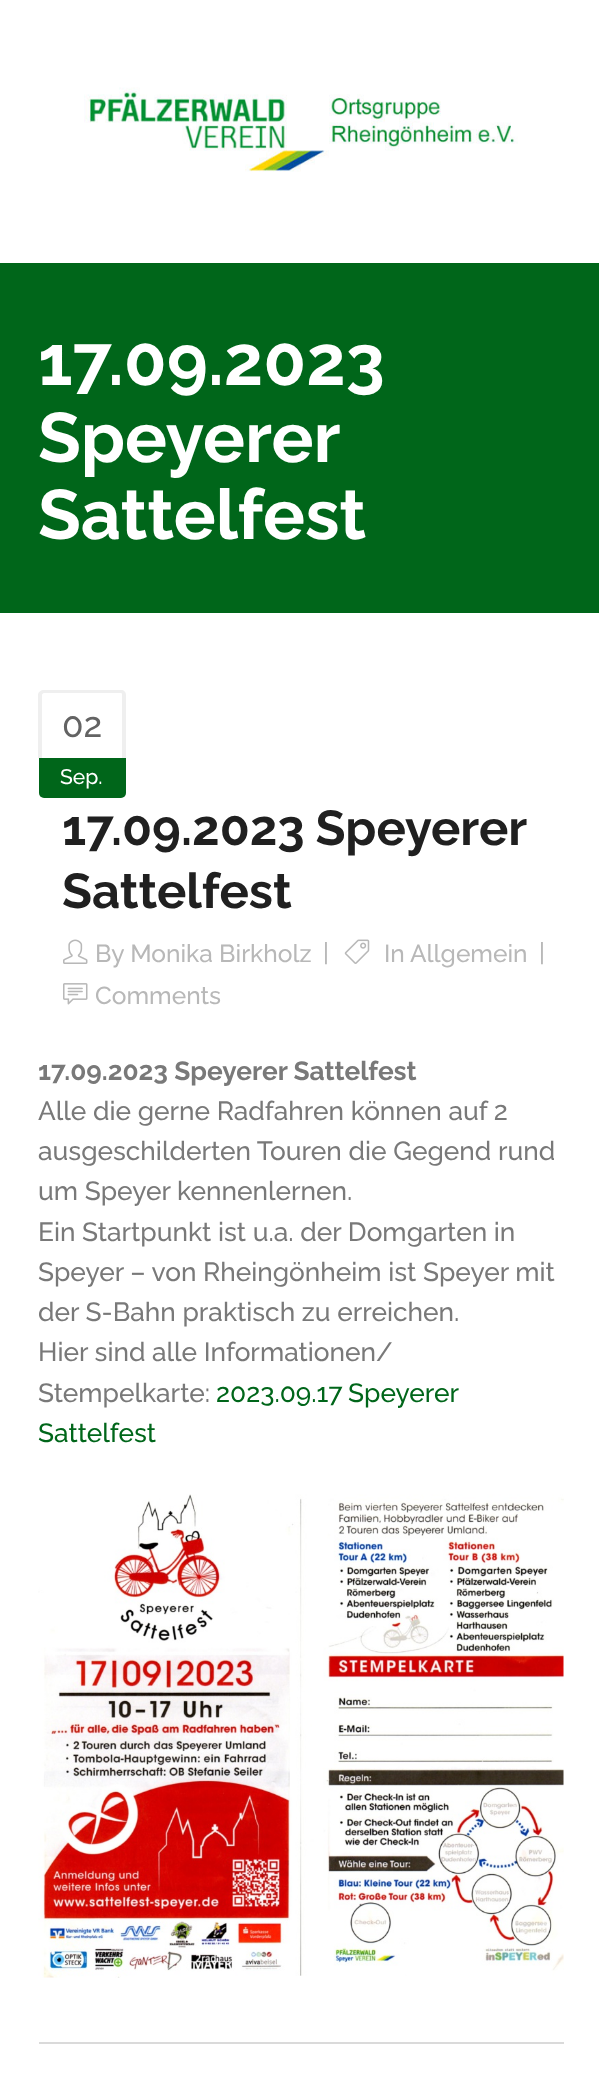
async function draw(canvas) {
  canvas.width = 599
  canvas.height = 2076
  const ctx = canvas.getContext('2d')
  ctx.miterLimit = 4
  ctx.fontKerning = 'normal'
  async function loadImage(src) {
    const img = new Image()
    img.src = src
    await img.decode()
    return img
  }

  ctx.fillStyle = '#fff'
  ctx.fillRect(0, 0, 599, 2076)
  ctx.drawImage(await loadImage('image0.png'), 84, 87, 434, 85)
  ctx.fillStyle = '#00661a'
  ctx.fillRect(0, 263, 599, 350)
  ctx.font = '100 70px "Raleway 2"'
  ctx.fillStyle = '#fff'
  ctx.fillText('17.09.2023', 38, 385)
  ctx.fillText('Speyerer', 38, 462)
  ctx.fillText('Sattelfest', 38, 539)
  ctx.fillStyle = '#efefef'
  ctx.beginPath()
  ctx.moveTo(44, 690)
  ctx.lineTo(121, 690)
  ctx.bezierCurveTo(124, 690, 126, 692, 126, 695)
  ctx.lineTo(126, 758)
  ctx.lineTo(38, 758)
  ctx.lineTo(38, 695)
  ctx.bezierCurveTo(38, 692, 41, 690, 44, 690)
  ctx.closePath()
  ctx.moveTo(44, 693)
  ctx.lineTo(121, 693)
  ctx.bezierCurveTo(122, 693, 122, 694, 122, 695)
  ctx.lineTo(122, 758)
  ctx.lineTo(42, 758)
  ctx.lineTo(42, 695)
  ctx.bezierCurveTo(42, 694, 43, 693, 44, 693)
  ctx.closePath()
  ctx.fill('evenodd')
  ctx.font = '100 35px Raleway'
  ctx.fillStyle = '#636363'
  ctx.fillText('02', 62, 737)
  ctx.fillStyle = '#00661a'
  ctx.beginPath()
  ctx.roundRect(39, 758, 87, 40, [0, 0, 5, 5])
  ctx.fill()
  ctx.font = '100 21px Raleway'
  ctx.fillStyle = '#fff'
  ctx.fillText('Sep.', 60, 784)
  ctx.wordSpacing = '-1px'
  ctx.font = '100 49px "Raleway 2"'
  ctx.fillStyle = '#202020'
  ctx.fillText('17.09.2023 Speyerer', 62, 845)
  ctx.wordSpacing = '0px'
  ctx.fillText('Sattelfest', 62, 908)
  ctx.drawImage(await loadImage('image1.png'), 63, 939, 25, 25)
  ctx.font = '100 24.5px Raleway'
  ctx.fillStyle = '#b8b8b8'
  ctx.fillText('By Monika Birkholz', 95, 962)
  ctx.fillText('|', 323, 961)
  ctx.drawImage(await loadImage('image2.png'), 344, 939, 26, 25)
  ctx.fillText('In', 384, 962)
  ctx.fillText('Allgemein', 410, 962)
  ctx.fillText('|', 539, 961)
  ctx.drawImage(await loadImage('image3.png'), 63, 983, 25, 22)
  ctx.fillText('Comments', 95, 1004)
  ctx.font = '100 26.25px "Raleway 2"'
  ctx.fillStyle = '#797979'
  ctx.fillText('17.09.2023 Speyerer Sattelfest', 38, 1080)
  ctx.font = '100 26.25px Raleway'
  ctx.fillText('Alle die gerne Radfahren können auf 2', 38, 1120)
  ctx.fillText('ausgeschilderten Touren die Gegend rund', 38, 1160)
  ctx.fillText('um Speyer kennenlernen.', 38, 1200)
  ctx.fillText('Ein Startpunkt ist u.a. der Domgarten in', 38, 1241)
  ctx.fillText('Speyer – von Rheingönheim ist Speyer mit', 38, 1281)
  ctx.fillText('der S-Bahn praktisch zu erreichen.', 38, 1321)
  ctx.fillText('Hier sind alle Informationen/', 38, 1361)
  ctx.fillText('Stempelkarte:', 38, 1402)
  ctx.wordSpacing = '-1px'
  ctx.fillStyle = '#00661a'
  ctx.fillText('2023.09.17 Speyerer', 216, 1402)
  ctx.wordSpacing = '0px'
  ctx.fillText('Sattelfest', 38, 1442)
  ctx.drawImage(await loadImage('image4.png'), 38, 1494, 526, 484)
  ctx.fillStyle = '#dadada'
  ctx.fillRect(39, 2042, 525, 2)
}

draw(document.querySelector('canvas'))
